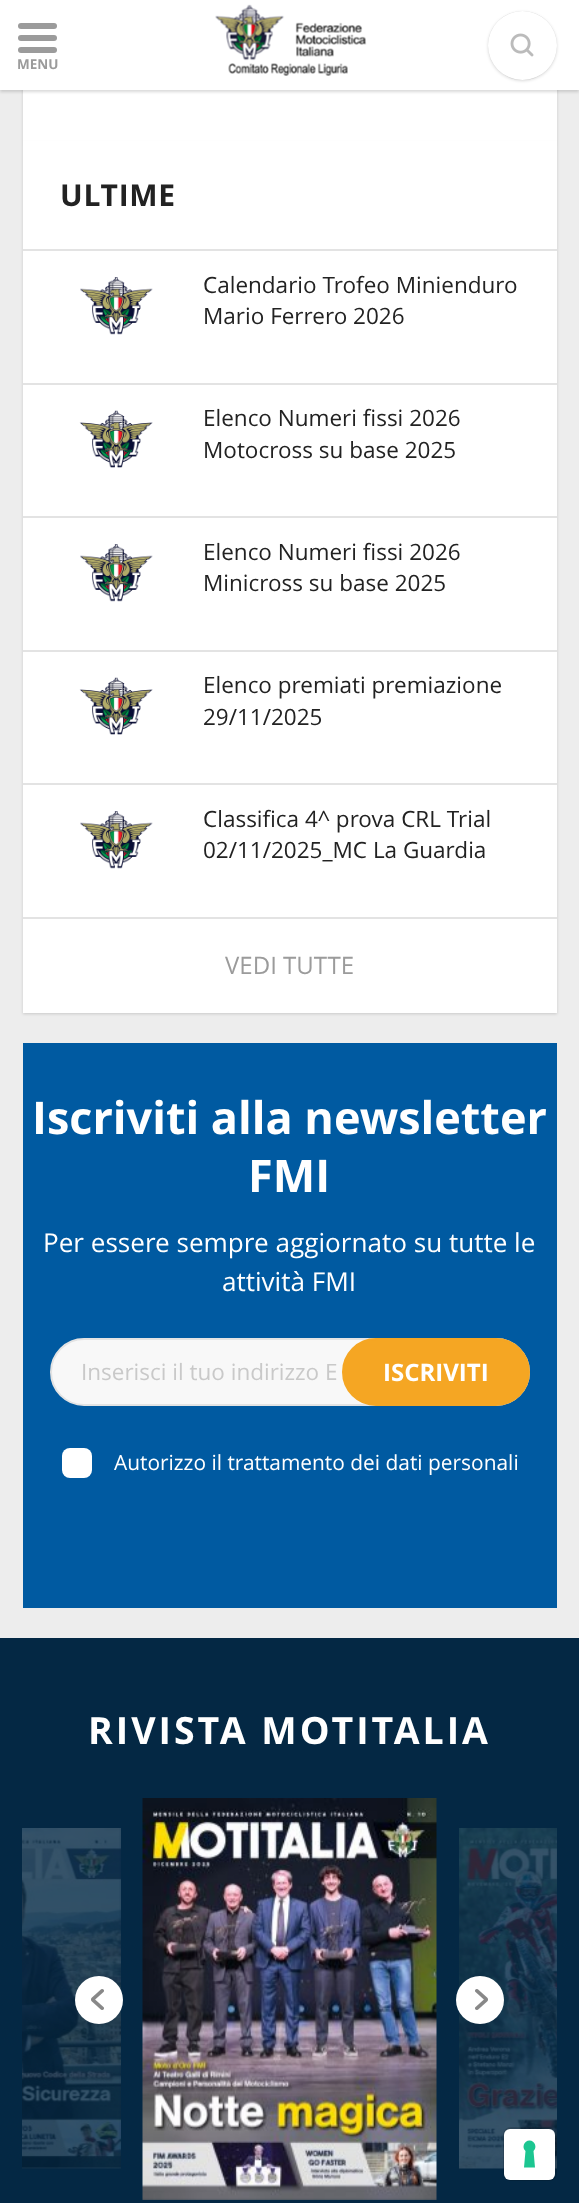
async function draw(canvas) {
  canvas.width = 579
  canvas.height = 2203
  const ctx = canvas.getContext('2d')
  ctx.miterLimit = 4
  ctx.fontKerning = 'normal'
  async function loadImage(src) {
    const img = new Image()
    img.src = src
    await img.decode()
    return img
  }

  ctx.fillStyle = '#ededed'
  ctx.fillRect(0, 0, 579, 2203)
  ctx.fillStyle = '#00000026'
  ctx.filter = 'blur(1.5px)'
  ctx.beginPath()
  ctx.rect(23, -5, 534, 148)
  ctx.fill()
  ctx.filter = 'none'
  ctx.fillStyle = '#fff'
  ctx.fillRect(23, 90, 534, 51)
  ctx.fillStyle = '#00000026'
  ctx.filter = 'blur(1.5px)'
  ctx.beginPath()
  ctx.rect(0, 2, 579, 90)
  ctx.fill()
  ctx.filter = 'none'
  ctx.fillStyle = '#fff'
  ctx.fillRect(0, 0, 579, 90)
  ctx.fillStyle = '#9b9b9b'
  ctx.beginPath()
  ctx.roundRect(18, 35, 39, 6, 3)
  ctx.fill()
  ctx.beginPath()
  ctx.roundRect(18, 23, 39, 6, 3)
  ctx.fill()
  ctx.beginPath()
  ctx.roundRect(18, 47, 39, 6, 3)
  ctx.fill()
  ctx.font = 'bold 13.5px Open Sans'
  ctx.fillText('MENU', 17, 69)
  ctx.drawImage(await loadImage('image0.png'), 215, 4, 152, 72)
  ctx.beginPath()
  ctx.arc(522.5, 45.5, 33.5, 0, 2 * Math.PI)
  ctx.strokeStyle = '#e3e3e3'
  ctx.lineWidth = 2
  ctx.stroke()
  ctx.fillStyle = '#00000026'
  ctx.filter = 'blur(1.5px)'
  ctx.beginPath()
  ctx.roundRect(488, 12, 69, 69, 34.5)
  ctx.fill()
  ctx.filter = 'none'
  ctx.fillStyle = '#fff'
  ctx.beginPath()
  ctx.arc(522.5, 45.5, 34.5, 0, 2 * Math.PI)
  ctx.fill()
  ctx.drawImage(await loadImage('image1.png'), 510, 33, 24, 24)
  ctx.fillStyle = '#00000026'
  ctx.filter = 'blur(1.5px)'
  ctx.beginPath()
  ctx.rect(23, 143, 534, 871)
  ctx.fill()
  ctx.filter = 'none'
  ctx.fillStyle = '#fff'
  ctx.fillRect(23, 141, 534, 872)
  ctx.letterSpacing = '0.75px'
  ctx.font = 'bold 30px Open Sans'
  ctx.fillStyle = '#222'
  ctx.fillText('ULTIME', 60, 206)
  ctx.fillStyle = '#e3e3e3'
  ctx.fillRect(23, 249, 534, 2)
  ctx.drawImage(await loadImage('image2.png'), 80, 277, 73, 58)
  ctx.letterSpacing = '0px'
  ctx.font = '22.5px Open Sans'
  ctx.fillStyle = '#222'
  ctx.fillText('Calendario Trofeo Minienduro', 203, 293)
  ctx.fillText('Mario Ferrero 2026', 203, 324)
  ctx.fillStyle = '#e3e3e3'
  ctx.fillRect(23, 383, 534, 2)
  ctx.drawImage(await loadImage('image3.png'), 79, 410, 74, 58)
  ctx.fillStyle = '#222'
  ctx.fillText('Elenco Numeri fissi 2026', 203, 426)
  ctx.fillText('Motocross su base 2025', 203, 458)
  ctx.fillStyle = '#e3e3e3'
  ctx.fillRect(23, 516, 534, 2)
  ctx.drawImage(await loadImage('image2.png'), 80, 544, 73, 58)
  ctx.fillStyle = '#222'
  ctx.fillText('Elenco Numeri fissi 2026', 203, 560)
  ctx.fillText('Minicross su base 2025', 203, 591)
  ctx.fillStyle = '#e3e3e3'
  ctx.fillRect(23, 650, 534, 2)
  ctx.drawImage(await loadImage('image3.png'), 79, 677, 74, 58)
  ctx.fillStyle = '#222'
  ctx.fillText('Elenco premiati premiazione', 203, 693)
  ctx.fillText('29/11/2025', 203, 725)
  ctx.fillStyle = '#e3e3e3'
  ctx.fillRect(23, 783, 534, 2)
  ctx.drawImage(await loadImage('image2.png'), 80, 811, 73, 58)
  ctx.fillStyle = '#222'
  ctx.fillText('Classifica 4^ prova CRL Trial', 203, 827)
  ctx.fillText('02/11/2025_MC La Guardia', 203, 858)
  ctx.fillStyle = '#e3e3e3'
  ctx.fillRect(23, 917, 534, 2)
  ctx.font = '24px Open Sans'
  ctx.fillStyle = '#9b9b9b'
  ctx.fillText('VEDI TUTTE', 225, 974)
  ctx.fillStyle = '#005aa1'
  ctx.fillRect(23, 1043, 534, 565)
  ctx.font = 'bold 45px Open Sans'
  ctx.fillStyle = '#fff'
  ctx.fillText('Iscriviti alla newsletter', 32, 1134)
  ctx.fillText('FMI', 248, 1192)
  ctx.font = '26.1px Open Sans'
  ctx.fillText('Per essere sempre aggiornato su tutte le', 43, 1252)
  ctx.fillText('attività FMI', 222, 1291)
  ctx.fillStyle = '#f8f8f8'
  ctx.beginPath()
  ctx.roundRect(51, 1339, 478, 66, 33)
  ctx.fill()
  ctx.stroke()
  ctx.font = '22.5px Open Sans'
  ctx.fillStyle = '#c9c9c9'
  ctx.fillText('Inserisci il tuo indirizzo E', 81, 1380)
  ctx.fillStyle = '#f5a623'
  ctx.beginPath()
  ctx.roundRect(343, 1339, 186, 66, 33)
  ctx.fill()
  ctx.strokeStyle = '#f5a623'
  ctx.stroke()
  ctx.font = 'bold 24px Open Sans'
  ctx.fillStyle = '#fff'
  ctx.fillText('ISCRIVITI', 383, 1381)
  ctx.beginPath()
  ctx.roundRect(62, 1448, 30, 30, 8)
  ctx.fill()
  ctx.font = '20.9px Open Sans'
  ctx.fillText('Autorizzo il trattamento dei dati personali', 114, 1470)
  ctx.fillStyle = '#042844'
  ctx.fillRect(0, 1638, 579, 565)
  ctx.letterSpacing = '3px'
  ctx.font = 'bold 37.5px Open Sans'
  ctx.fillStyle = '#fff'
  ctx.fillText('RIVISTA MOTITALIA', 88, 1744)
  ctx.drawImage(await loadImage('image4.png'), 22, 1828, 99, 341)
  ctx.drawImage(await loadImage('image5.png'), 142, 1798, 295, 402)
  ctx.drawImage(await loadImage('image6.png'), 459, 1828, 98, 341)
  ctx.beginPath()
  ctx.arc(99, 2000, 24, 0, 2 * Math.PI)
  ctx.fill()
  ctx.drawImage(await loadImage('image7.png'), 91, 1989, 13, 21)
  ctx.beginPath()
  ctx.arc(480, 2000, 24, 0, 2 * Math.PI)
  ctx.fill()
  ctx.drawImage(await loadImage('image8.png'), 475, 1989, 13, 21)
  ctx.beginPath()
  ctx.roundRect(504, 2128, 52, 52, 7)
  ctx.strokeStyle = '#00000026'
  ctx.stroke()
  ctx.beginPath()
  ctx.roundRect(504, 2129, 51, 51, 6)
  ctx.fill()
  ctx.fillStyle = '#1cc691'
  ctx.beginPath()
  ctx.moveTo(529.5, 2140.5)
  ctx.bezierCurveTo(535, 2140.5, 537.5, 2147.5, 533.5, 2151)
  ctx.lineTo(535, 2167.5)
  ctx.lineTo(524, 2167.5)
  ctx.lineTo(525.5, 2151)
  ctx.bezierCurveTo(521.5, 2147.5, 524, 2140.5, 529.5, 2140.5)
  ctx.closePath()
  ctx.fill('evenodd')
}

draw(document.querySelector('canvas'))
